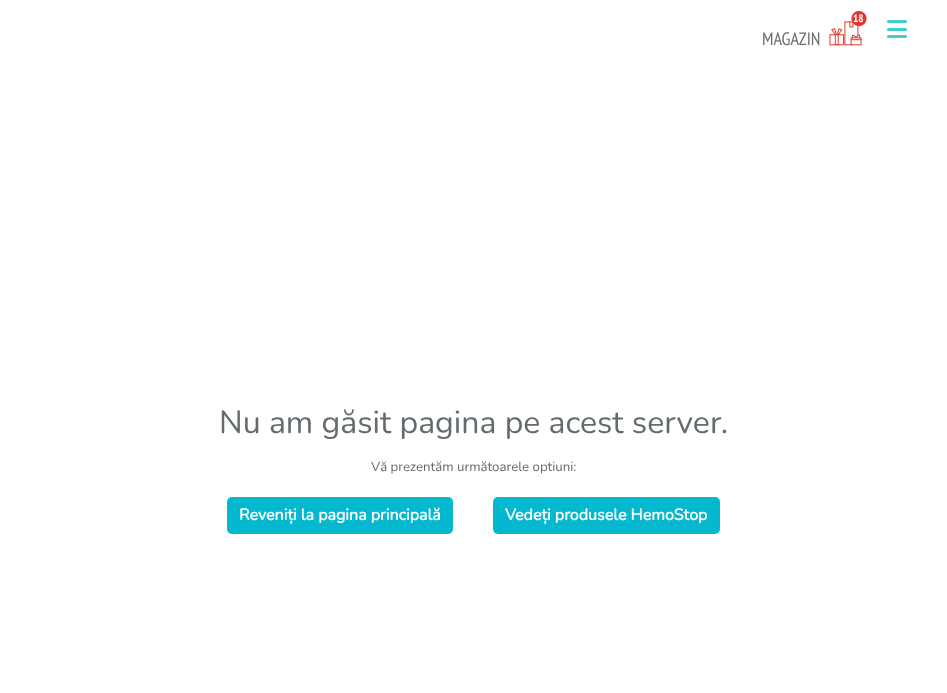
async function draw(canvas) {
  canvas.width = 947
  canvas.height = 693
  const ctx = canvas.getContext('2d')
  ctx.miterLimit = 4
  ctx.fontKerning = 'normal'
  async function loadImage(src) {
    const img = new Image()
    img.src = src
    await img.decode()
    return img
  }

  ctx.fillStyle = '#fff'
  ctx.fillRect(0, 0, 947, 693)
  ctx.drawImage(await loadImage('image0.png'), 829, 11, 38, 35)
  ctx.font = 'bold 11px PT Sans Narrow'
  ctx.fillText('18', 853, 22)
  ctx.font = '18px PT Sans Narrow'
  ctx.fillStyle = '#6c6c6c'
  ctx.fillText('MAGAZIN', 762, 45)
  ctx.fillStyle = '#42ccce'
  ctx.beginPath()
  ctx.roundRect(887, 20, 20, 3, 1.5)
  ctx.fill()
  ctx.beginPath()
  ctx.roundRect(887, 35, 20, 3, 1.5)
  ctx.fill()
  ctx.beginPath()
  ctx.roundRect(887, 28, 20, 3, 1.5)
  ctx.fill()
  ctx.font = '200 32px Nunito'
  ctx.fillStyle = '#636b6f'
  ctx.fillText('Nu am găsit pagina pe acest server.', 219, 433)
  ctx.font = '200 13.25px Nunito'
  ctx.fillText('Vă prezentăm următoarele optiuni:', 371, 471)
  ctx.fillStyle = '#04b8d0'
  ctx.beginPath()
  ctx.roundRect(227, 497, 226, 37, 5)
  ctx.fill()
  ctx.font = 'bold 16px Nunito'
  ctx.fillStyle = '#fff'
  ctx.fillText('Reveniți la pagina principală', 239, 520)
  ctx.fillStyle = '#04b8d0'
  ctx.beginPath()
  ctx.roundRect(493, 497, 227, 37, 5)
  ctx.fill()
  ctx.fillStyle = '#fff'
  ctx.fillText('Vedeți produsele HemoStop', 505, 520)
}

draw(document.querySelector('canvas'))
